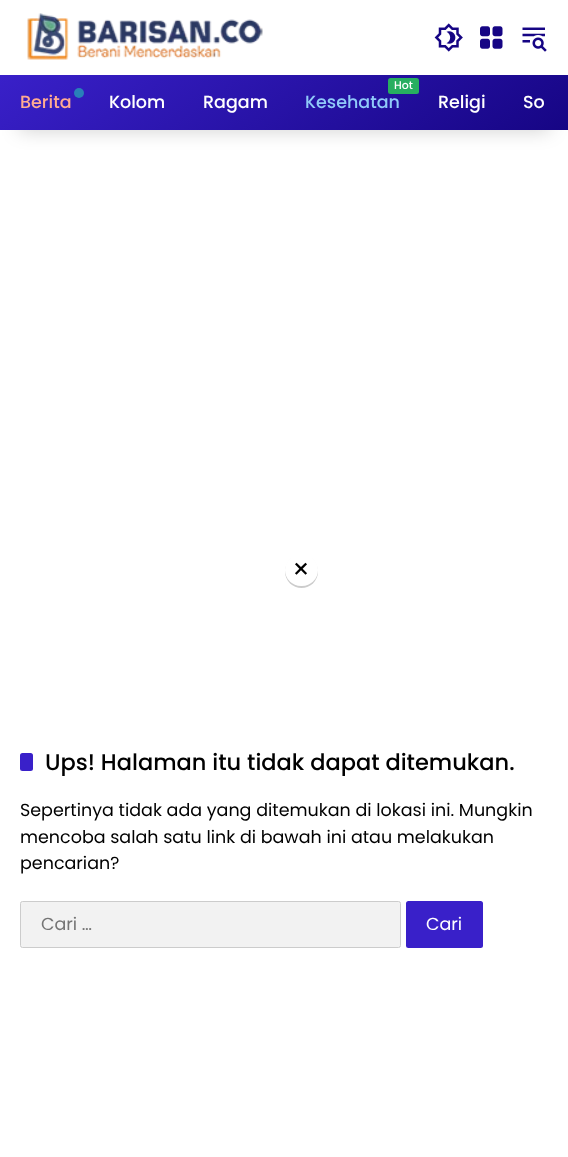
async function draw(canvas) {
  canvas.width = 568
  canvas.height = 1157
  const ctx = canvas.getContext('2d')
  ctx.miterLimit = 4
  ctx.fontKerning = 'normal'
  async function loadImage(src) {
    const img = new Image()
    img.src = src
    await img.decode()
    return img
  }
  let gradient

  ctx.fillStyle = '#fff'
  ctx.fillRect(0, 0, 568, 1157)
  ctx.drawImage(await loadImage('image0.png'), 27, 13, 236, 47)
  ctx.drawImage(await loadImage('image1.png'), 434, 23, 29, 29)
  ctx.drawImage(await loadImage('image2.png'), 480, 26, 23, 23)
  ctx.drawImage(await loadImage('image3.png'), 522, 27, 25, 25)
  ctx.fillStyle = '#00000033'
  ctx.filter = 'blur(9.5px)'
  ctx.beginPath()
  ctx.rect(19, 113, 531, 17)
  ctx.fill()
  ctx.filter = 'none'
  gradient = ctx.createLinearGradient(391, 255, 178, -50)
  gradient.addColorStop(0, '#160584')
  gradient.addColorStop(1, '#3920c9')
  ctx.fillStyle = gradient
  ctx.fillRect(0, 75, 568, 55)
  ctx.fillStyle = '#2980b9'
  ctx.beginPath()
  ctx.arc(79, 93, 5, 0, 2 * Math.PI)
  ctx.fill()
  ctx.font = '500 17.5px Poppins'
  ctx.fillStyle = '#ffab91'
  ctx.fillText('Berita', 20, 108)
  ctx.fillStyle = '#fff'
  ctx.fillText('Kolom', 109, 108)
  ctx.fillText('Ragam', 203, 108)
  ctx.fillStyle = '#27ae60'
  ctx.beginPath()
  ctx.roundRect(388, 78, 31, 16, 2.5)
  ctx.fill()
  ctx.font = '500 11px Poppins'
  ctx.fillStyle = '#fff'
  ctx.fillText('Hot', 394, 89)
  ctx.font = '500 17.5px Poppins'
  ctx.fillStyle = '#90caf9'
  ctx.fillText('Kesehatan', 305, 108)
  ctx.fillStyle = '#fff'
  ctx.fillText('Religi', 438, 108)
  ctx.fillText('So', 523, 108)
  ctx.fillStyle = '#3920c9'
  ctx.beginPath()
  ctx.roundRect(20, 753, 13, 18, 2.5)
  ctx.fill()
  ctx.font = '500 22.5px Poppins'
  ctx.fillStyle = '#000'
  ctx.fillText('Ups! Halaman itu tidak dapat ditemukan.', 45, 770)
  ctx.font = '17.5px Poppins'
  ctx.fillText('Sepertinya tidak ada yang ditemukan di lokasi ini. Mungkin', 20, 816)
  ctx.fillText('mencoba salah satu link di bawah ini atau melakukan', 20, 843)
  ctx.fillText('pencarian?', 20, 869)
  ctx.fillStyle = '#f2f2f2'
  ctx.beginPath()
  ctx.roundRect(20.5, 901.5, 380, 46, 2)
  ctx.fill()
  ctx.strokeStyle = '#ccc'
  ctx.stroke()
  ctx.fillStyle = '#757575'
  ctx.fillText('Cari …', 41, 930)
  ctx.fillStyle = '#3920c9'
  ctx.beginPath()
  ctx.roundRect(406, 901, 77, 47, 2.5)
  ctx.fill()
  ctx.fillStyle = '#fff'
  ctx.fillText('Cari', 426, 930)
  ctx.fillStyle = '#00000033'
  ctx.filter = 'blur(0.5px)'
  ctx.beginPath()
  ctx.roundRect(285, 555, 33, 33, 16.5)
  ctx.fill()
  ctx.filter = 'none'
  ctx.fillStyle = '#fff'
  ctx.beginPath()
  ctx.roundRect(285, 554, 33, 32, 16)
  ctx.fill()
  ctx.font = '28px Poppins'
  ctx.fillStyle = '#000'
  ctx.fillText('×', 292, 579)
}

draw(document.querySelector('canvas'))
